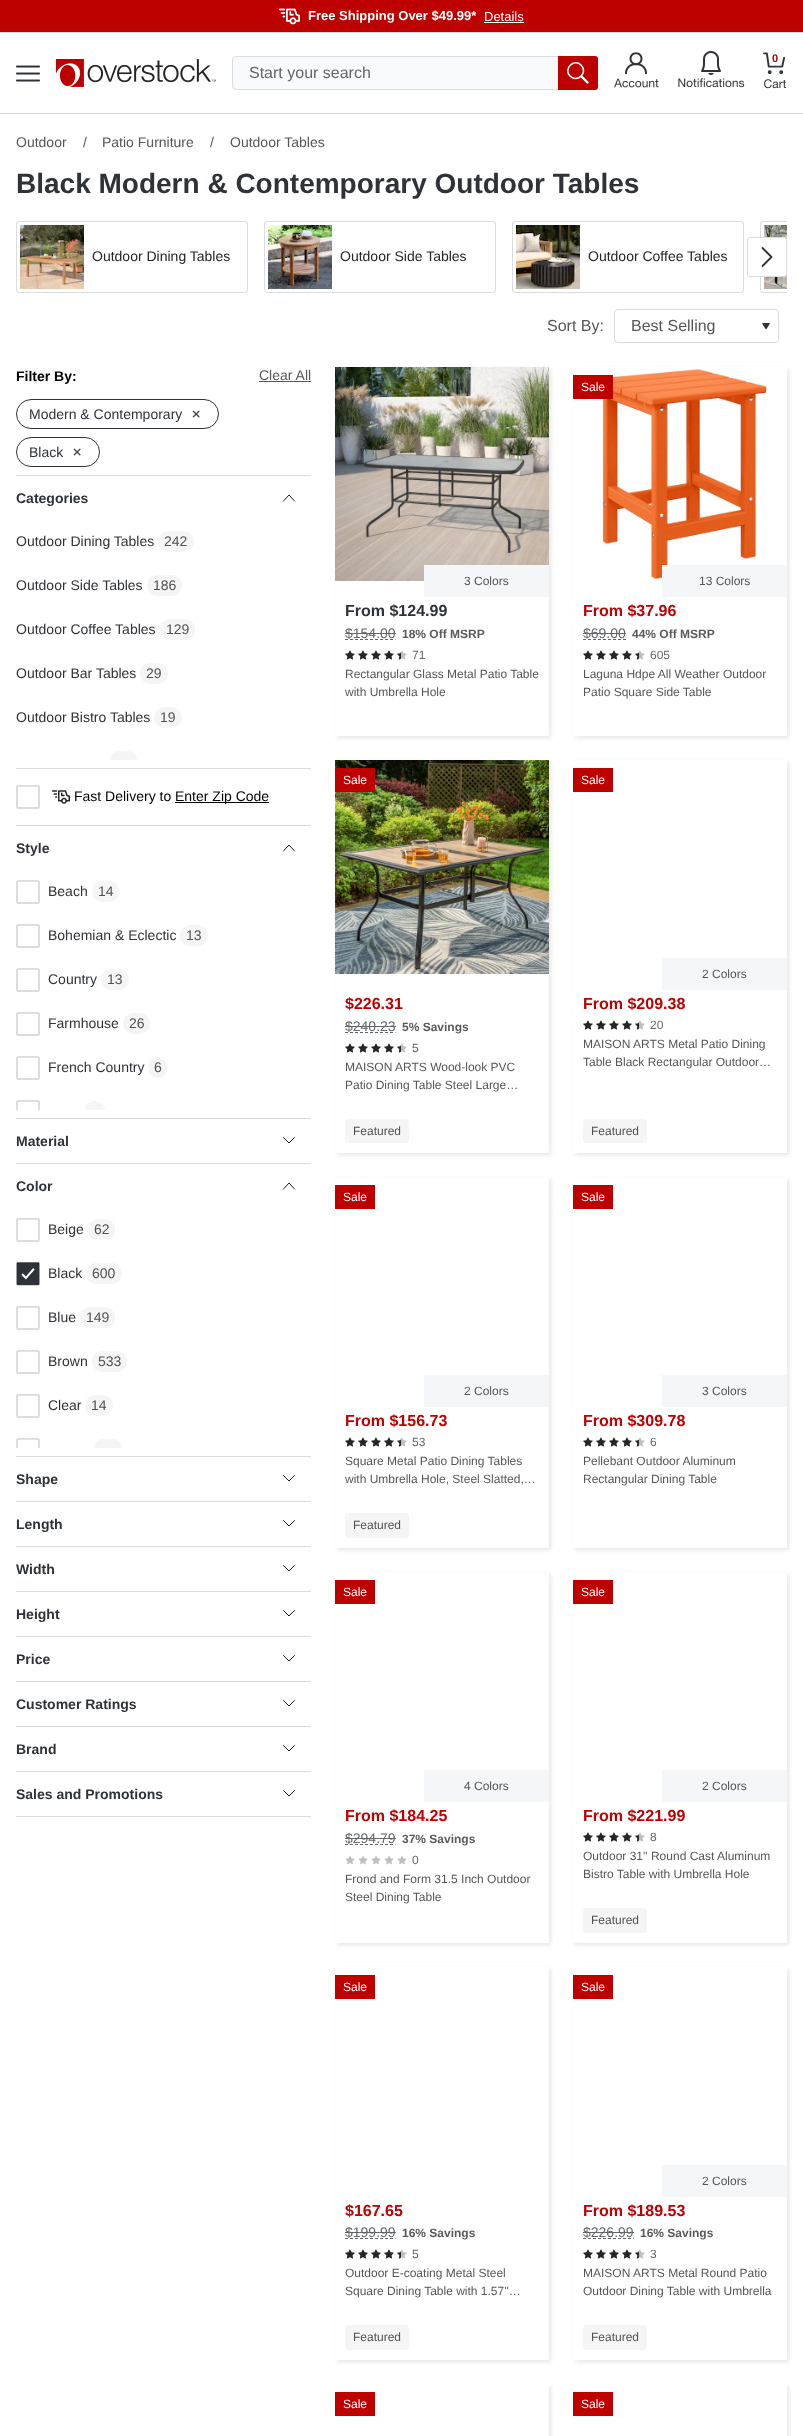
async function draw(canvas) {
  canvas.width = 803
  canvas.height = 2436
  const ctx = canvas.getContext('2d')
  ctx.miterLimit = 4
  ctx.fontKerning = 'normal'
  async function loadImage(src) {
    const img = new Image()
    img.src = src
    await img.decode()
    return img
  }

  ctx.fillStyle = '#fff'
  ctx.fillRect(0, 0, 803, 2436)
  ctx.fillStyle = '#bd0000'
  ctx.fillRect(0, 0, 803, 32)
  ctx.drawImage(await loadImage('image0.png'), 279, 8, 21, 17)
  ctx.font = 'bold 13px Liberation Sans'
  ctx.fillStyle = '#fff'
  ctx.fillText('Free Shipping Over $49.99*', 308, 20)
  ctx.font = '13px Liberation Sans'
  ctx.fillText('Details', 484, 21)
  ctx.fillRect(484, 22, 40, 1)
  ctx.fillStyle = '#dadcdf'
  ctx.fillRect(0, 32, 803, 1)
  ctx.fillRect(0, 113, 803, 1)
  ctx.drawImage(await loadImage('image1.png'), 16, 65, 24, 17)
  ctx.drawImage(await loadImage('image2.png'), 56, 59, 160, 28)
  ctx.fillStyle = '#f9fafb'
  ctx.beginPath()
  ctx.roundRect(232.5, 56.5, 365, 33, 3.5)
  ctx.fill()
  ctx.strokeStyle = '#dadcdf'
  ctx.stroke()
  ctx.font = '16px Liberation Sans'
  ctx.fillStyle = '#626669'
  ctx.fillText('Start your search', 249, 78)
  ctx.fillStyle = '#bd0000'
  ctx.beginPath()
  ctx.roundRect(558, 56, 40, 34, [0, 3, 3, 0])
  ctx.fill()
  ctx.beginPath()
  ctx.moveTo(587.5, 82.5)
  ctx.lineTo(582, 77)
  ctx.strokeStyle = '#fff'
  ctx.lineWidth = 2.4
  ctx.lineCap = 'round'
  ctx.stroke()
  ctx.beginPath()
  ctx.moveTo(581, 65)
  ctx.bezierCurveTo(588.5, 72.5, 577.5, 83.5, 570, 76)
  ctx.bezierCurveTo(563, 69, 574, 58, 581, 65)
  ctx.closePath()
  ctx.lineWidth = 1.6
  ctx.lineCap = 'butt'
  ctx.stroke()
  ctx.drawImage(await loadImage('image3.png'), 614, 52, 45, 36)
  ctx.drawImage(await loadImage('image4.png'), 678, 51, 67, 37)
  ctx.drawImage(await loadImage('image5.png'), 763, 52, 24, 37)
  ctx.font = 'bold 11px Liberation Sans'
  ctx.fillText('0', 772, 62)
  ctx.font = '14px Liberation Sans'
  ctx.fillStyle = '#545658'
  ctx.fillText('Outdoor', 16, 147)
  ctx.fillText('/', 83, 147)
  ctx.fillText('Patio Furniture', 102, 147)
  ctx.fillText('/', 210, 147)
  ctx.fillText('Outdoor Tables', 230, 147)
  ctx.font = 'bold 28px Liberation Sans'
  ctx.fillStyle = '#2f3337'
  ctx.fillText('Black Modern & Contemporary Outdoor Tables', 16, 193)
  ctx.beginPath()
  ctx.roundRect(16.5, 221.5, 231, 71, 2.5)
  ctx.strokeStyle = '#dadcdf'
  ctx.lineWidth = 1
  ctx.stroke()
  ctx.drawImage(await loadImage('image6.png'), 20, 225, 64, 64)
  ctx.font = '14px Liberation Sans'
  ctx.fillStyle = '#252525'
  ctx.fillText('Outdoor Dining Tables', 92, 261)
  ctx.beginPath()
  ctx.roundRect(264.5, 221.5, 231, 71, 2.5)
  ctx.stroke()
  ctx.drawImage(await loadImage('image7.png'), 268, 225, 64, 64)
  ctx.fillText('Outdoor Side Tables', 340, 261)
  ctx.beginPath()
  ctx.roundRect(512.5, 221.5, 231, 71, 2.5)
  ctx.stroke()
  ctx.drawImage(await loadImage('image8.png'), 516, 225, 64, 64)
  ctx.fillText('Outdoor Coffee Tables', 588, 261)
  ctx.save()
  ctx.beginPath()
  ctx.rect(16, 221, 771, 72)
  ctx.clip()
  ctx.beginPath()
  ctx.roundRect(760.5, 221.5, 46, 71, 2.5)
  ctx.stroke()
  ctx.restore()
  ctx.drawImage(await loadImage('image9.png'), 764, 225, 23, 64)
  ctx.fillStyle = '#fff'
  ctx.beginPath()
  ctx.roundRect(747.5, 237.5, 39, 39, 2.5)
  ctx.fill()
  ctx.stroke()
  ctx.beginPath()
  ctx.moveTo(762.5, 266)
  ctx.lineTo(771.5, 257)
  ctx.lineTo(762.5, 248)
  ctx.strokeStyle = '#2f3337'
  ctx.lineWidth = 1.8
  ctx.lineCap = 'round'
  ctx.lineJoin = 'round'
  ctx.stroke()
  ctx.font = '16px Liberation Sans'
  ctx.fillStyle = '#545658'
  ctx.fillText('Sort By:', 547, 331)
  ctx.drawImage(await loadImage('image10.png'), 762, 323, 8, 7)
  ctx.beginPath()
  ctx.roundRect(614.5, 309.5, 164, 33, 3.5)
  ctx.strokeStyle = '#dadcdf'
  ctx.lineWidth = 1
  ctx.lineJoin = 'miter'
  ctx.stroke()
  ctx.fillText('Best Selling', 631, 331)
  ctx.font = 'bold 14px Liberation Sans'
  ctx.fillStyle = '#000'
  ctx.fillText('Filter By:', 16, 381)
  ctx.font = '14px Liberation Sans'
  ctx.fillStyle = '#545658'
  ctx.fillText('Clear All', 259, 380)
  ctx.fillRect(259, 381, 52, 1)
  ctx.beginPath()
  ctx.roundRect(16.5, 399.5, 202, 29, 14.5)
  ctx.strokeStyle = '#2f3337'
  ctx.stroke()
  ctx.fillStyle = '#2f3337'
  ctx.fillText('Modern & Contemporary', 29, 419)
  ctx.drawImage(await loadImage('image11.png'), 192, 410, 8, 8)
  ctx.beginPath()
  ctx.roundRect(16.5, 437.5, 83, 29, 14.5)
  ctx.stroke()
  ctx.fillText('Black', 29, 457)
  ctx.drawImage(await loadImage('image12.png'), 73, 448, 8, 8)
  ctx.fillStyle = '#dadcdf'
  ctx.fillRect(16, 475, 295, 1)
  ctx.fillRect(16, 1816, 295, 1)
  ctx.font = 'bold 14px Liberation Sans'
  ctx.fillStyle = '#2f3337'
  ctx.fillText('Categories', 16, 503)
  ctx.beginPath()
  ctx.moveTo(283.5, 501)
  ctx.lineTo(289, 495)
  ctx.lineTo(294.5, 501)
  ctx.strokeStyle = '#000'
  ctx.lineWidth = 0.9
  ctx.stroke()
  ctx.font = '14px Liberation Sans'
  ctx.fillText('Outdoor Dining Tables', 16, 546)
  ctx.fillStyle = '#f5f5f5'
  ctx.beginPath()
  ctx.roundRect(158, 531, 36, 21, 10)
  ctx.fill()
  ctx.fillStyle = '#515151'
  ctx.fillText('242', 164, 546)
  ctx.fillStyle = '#2f3337'
  ctx.fillText('Outdoor Side Tables', 16, 590)
  ctx.fillStyle = '#f5f5f5'
  ctx.beginPath()
  ctx.roundRect(147, 575, 35, 21, 10)
  ctx.fill()
  ctx.fillStyle = '#515151'
  ctx.fillText('186', 153, 590)
  ctx.fillStyle = '#2f3337'
  ctx.fillText('Outdoor Coffee Tables', 16, 634)
  ctx.fillStyle = '#f5f5f5'
  ctx.beginPath()
  ctx.roundRect(160, 619, 35, 21, 10)
  ctx.fill()
  ctx.fillStyle = '#515151'
  ctx.fillText('129', 166, 634)
  ctx.fillStyle = '#2f3337'
  ctx.fillText('Outdoor Bar Tables', 16, 678)
  ctx.fillStyle = '#f5f5f5'
  ctx.beginPath()
  ctx.roundRect(140, 663, 28, 21, 10)
  ctx.fill()
  ctx.fillStyle = '#515151'
  ctx.fillText('29', 146, 678)
  ctx.fillStyle = '#2f3337'
  ctx.fillText('Outdoor Bistro Tables', 16, 722)
  ctx.fillStyle = '#f5f5f5'
  ctx.beginPath()
  ctx.roundRect(154, 707, 28, 21, 10)
  ctx.fill()
  ctx.fillStyle = '#515151'
  ctx.fillText('19', 160, 722)
  ctx.fillStyle = '#f5f5f5'
  ctx.beginPath()
  ctx.roundRect(110, 751, 27, 9, [10, 10, 0, 0])
  ctx.fill()
  ctx.fillStyle = '#dadcdf'
  ctx.fillRect(16, 768, 295, 1)
  ctx.beginPath()
  ctx.roundRect(17, 786, 22, 22, 1)
  ctx.strokeStyle = '#dadcdf'
  ctx.lineWidth = 2
  ctx.stroke()
  ctx.fillStyle = '#e1e3e5'
  ctx.fillRect(19, 786, 18, 1)
  ctx.drawImage(await loadImage('image13.png'), 52, 790, 18, 14)
  ctx.fillStyle = '#000'
  ctx.fillText('Fast Delivery to', 74, 801)
  ctx.fillRect(175, 802, 94, 1)
  ctx.fillText('Enter Zip Code', 175, 801)
  ctx.fillStyle = '#dadcdf'
  ctx.fillRect(16, 825, 295, 1)
  ctx.font = 'bold 14px Liberation Sans'
  ctx.fillStyle = '#2f3337'
  ctx.fillText('Style', 16, 853)
  ctx.beginPath()
  ctx.moveTo(283.5, 851)
  ctx.lineTo(289, 845)
  ctx.lineTo(294.5, 851)
  ctx.strokeStyle = '#000'
  ctx.lineWidth = 0.9
  ctx.stroke()
  ctx.beginPath()
  ctx.roundRect(17, 881, 22, 22, 1)
  ctx.strokeStyle = '#dadcdf'
  ctx.lineWidth = 2
  ctx.stroke()
  ctx.fillStyle = '#e1e3e5'
  ctx.fillRect(19, 881, 18, 1)
  ctx.font = '14px Liberation Sans'
  ctx.fillStyle = '#2f3337'
  ctx.fillText('Beach', 48, 896)
  ctx.fillStyle = '#f5f5f5'
  ctx.beginPath()
  ctx.roundRect(92, 881, 27, 21, 10)
  ctx.fill()
  ctx.fillStyle = '#515151'
  ctx.fillText('14', 98, 896)
  ctx.beginPath()
  ctx.roundRect(17, 925, 22, 22, 1)
  ctx.stroke()
  ctx.fillStyle = '#e1e3e5'
  ctx.fillRect(19, 925, 18, 1)
  ctx.fillStyle = '#2f3337'
  ctx.fillText('Bohemian & Eclectic', 48, 940)
  ctx.fillStyle = '#f5f5f5'
  ctx.beginPath()
  ctx.roundRect(180, 925, 28, 21, 10)
  ctx.fill()
  ctx.fillStyle = '#515151'
  ctx.fillText('13', 186, 940)
  ctx.beginPath()
  ctx.roundRect(17, 969, 22, 22, 1)
  ctx.stroke()
  ctx.fillStyle = '#e1e3e5'
  ctx.fillRect(19, 969, 18, 1)
  ctx.fillStyle = '#2f3337'
  ctx.fillText('Country', 48, 984)
  ctx.fillStyle = '#f5f5f5'
  ctx.beginPath()
  ctx.roundRect(101, 969, 28, 21, 10)
  ctx.fill()
  ctx.fillStyle = '#515151'
  ctx.fillText('13', 107, 984)
  ctx.beginPath()
  ctx.roundRect(17, 1013, 22, 22, 1)
  ctx.stroke()
  ctx.fillStyle = '#e1e3e5'
  ctx.fillRect(19, 1013, 18, 1)
  ctx.fillStyle = '#2f3337'
  ctx.fillText('Farmhouse', 48, 1028)
  ctx.fillStyle = '#f5f5f5'
  ctx.beginPath()
  ctx.roundRect(123, 1013, 27, 21, 10)
  ctx.fill()
  ctx.fillStyle = '#515151'
  ctx.fillText('26', 129, 1028)
  ctx.beginPath()
  ctx.roundRect(17, 1057, 22, 22, 1)
  ctx.stroke()
  ctx.fillStyle = '#e1e3e5'
  ctx.fillRect(19, 1057, 18, 1)
  ctx.fillStyle = '#2f3337'
  ctx.fillText('French Country', 48, 1072)
  ctx.fillStyle = '#f5f5f5'
  ctx.beginPath()
  ctx.roundRect(148, 1057, 20, 21, 10)
  ctx.fill()
  ctx.fillStyle = '#515151'
  ctx.fillText('6', 154, 1072)
  ctx.fillStyle = '#dadcdf'
  ctx.fillRect(16, 1118, 295, 1)
  ctx.save()
  ctx.beginPath()
  ctx.rect(16, 870, 295, 240)
  ctx.clip()
  ctx.beginPath()
  ctx.roundRect(17, 1101, 22, 22, 1)
  ctx.stroke()
  ctx.restore()
  ctx.fillStyle = '#e1e3e5'
  ctx.fillRect(19, 1101, 18, 1)
  ctx.fillStyle = '#f5f5f5'
  ctx.beginPath()
  ctx.roundRect(85, 1101, 20, 9, [10, 10, 0, 0])
  ctx.fill()
  ctx.font = 'bold 14px Liberation Sans'
  ctx.fillStyle = '#2f3337'
  ctx.fillText('Material', 16, 1146)
  ctx.fillStyle = '#dadcdf'
  ctx.fillRect(16, 1163, 295, 1)
  ctx.beginPath()
  ctx.moveTo(294.5, 1137.5)
  ctx.lineTo(289, 1143)
  ctx.lineTo(283.5, 1137.5)
  ctx.moveTo(283.5, 1189)
  ctx.lineTo(289, 1183)
  ctx.lineTo(294.5, 1189)
  ctx.strokeStyle = '#000'
  ctx.lineWidth = 0.9
  ctx.stroke()
  ctx.fillStyle = '#2f3337'
  ctx.fillText('Color', 16, 1191)
  ctx.beginPath()
  ctx.roundRect(17, 1219, 22, 22, 1)
  ctx.strokeStyle = '#dadcdf'
  ctx.lineWidth = 2
  ctx.stroke()
  ctx.fillStyle = '#e1e3e5'
  ctx.fillRect(19, 1219, 18, 1)
  ctx.font = '14px Liberation Sans'
  ctx.fillStyle = '#2f3337'
  ctx.fillText('Beige', 48, 1234)
  ctx.fillStyle = '#f5f5f5'
  ctx.beginPath()
  ctx.roundRect(88, 1219, 27, 21, 10)
  ctx.fill()
  ctx.fillStyle = '#515151'
  ctx.fillText('62', 94, 1234)
  ctx.drawImage(await loadImage('image14.png'), 16, 1262, 24, 24)
  ctx.fillStyle = '#2f3337'
  ctx.fillText('Black', 48, 1278)
  ctx.fillStyle = '#f5f5f5'
  ctx.beginPath()
  ctx.roundRect(86, 1263, 36, 21, 10)
  ctx.fill()
  ctx.fillStyle = '#515151'
  ctx.fillText('600', 92, 1278)
  ctx.beginPath()
  ctx.roundRect(17, 1307, 22, 22, 1)
  ctx.stroke()
  ctx.fillStyle = '#e1e3e5'
  ctx.fillRect(19, 1307, 18, 1)
  ctx.fillStyle = '#2f3337'
  ctx.fillText('Blue', 48, 1322)
  ctx.fillStyle = '#f5f5f5'
  ctx.beginPath()
  ctx.roundRect(80, 1307, 35, 21, 10)
  ctx.fill()
  ctx.fillStyle = '#515151'
  ctx.fillText('149', 86, 1322)
  ctx.beginPath()
  ctx.roundRect(17, 1351, 22, 22, 1)
  ctx.stroke()
  ctx.fillStyle = '#e1e3e5'
  ctx.fillRect(19, 1351, 18, 1)
  ctx.fillStyle = '#2f3337'
  ctx.fillText('Brown', 48, 1366)
  ctx.fillStyle = '#f5f5f5'
  ctx.beginPath()
  ctx.roundRect(92, 1351, 35, 21, 10)
  ctx.fill()
  ctx.fillStyle = '#515151'
  ctx.fillText('533', 98, 1366)
  ctx.beginPath()
  ctx.roundRect(17, 1395, 22, 22, 1)
  ctx.stroke()
  ctx.fillStyle = '#e1e3e5'
  ctx.fillRect(19, 1395, 18, 1)
  ctx.fillStyle = '#2f3337'
  ctx.fillText('Clear', 48, 1410)
  ctx.fillStyle = '#f5f5f5'
  ctx.beginPath()
  ctx.roundRect(85, 1395, 28, 21, 10)
  ctx.fill()
  ctx.fillStyle = '#515151'
  ctx.fillText('14', 91, 1410)
  ctx.fillStyle = '#dadcdf'
  ctx.fillRect(16, 1456, 295, 1)
  ctx.save()
  ctx.beginPath()
  ctx.rect(16, 1208, 295, 240)
  ctx.clip()
  ctx.beginPath()
  ctx.roundRect(17, 1439, 22, 22, 1)
  ctx.stroke()
  ctx.restore()
  ctx.fillStyle = '#e1e3e5'
  ctx.fillRect(19, 1439, 18, 1)
  ctx.fillStyle = '#f5f5f5'
  ctx.beginPath()
  ctx.roundRect(94, 1439, 28, 9, [10, 10, 0, 0])
  ctx.fill()
  ctx.font = 'bold 14px Liberation Sans'
  ctx.fillStyle = '#2f3337'
  ctx.fillText('Shape', 16, 1484)
  ctx.fillStyle = '#dadcdf'
  ctx.fillRect(16, 1501, 295, 1)
  ctx.beginPath()
  ctx.moveTo(294.5, 1475.5)
  ctx.lineTo(289, 1481)
  ctx.lineTo(283.5, 1475.5)
  ctx.moveTo(294.5, 1520.5)
  ctx.lineTo(289, 1526)
  ctx.lineTo(283.5, 1520.5)
  ctx.strokeStyle = '#000'
  ctx.lineWidth = 0.9
  ctx.stroke()
  ctx.fillStyle = '#2f3337'
  ctx.fillText('Length', 16, 1529)
  ctx.fillStyle = '#dadcdf'
  ctx.fillRect(16, 1546, 295, 1)
  ctx.fillStyle = '#2f3337'
  ctx.fillText('Width', 16, 1574)
  ctx.fillStyle = '#dadcdf'
  ctx.fillRect(16, 1591, 295, 1)
  ctx.beginPath()
  ctx.moveTo(294.5, 1565.5)
  ctx.lineTo(289, 1571)
  ctx.lineTo(283.5, 1565.5)
  ctx.moveTo(294.5, 1610.5)
  ctx.lineTo(289, 1616)
  ctx.lineTo(283.5, 1610.5)
  ctx.stroke()
  ctx.fillStyle = '#2f3337'
  ctx.fillText('Height', 16, 1619)
  ctx.fillStyle = '#dadcdf'
  ctx.fillRect(16, 1636, 295, 1)
  ctx.fillStyle = '#2f3337'
  ctx.fillText('Price', 16, 1664)
  ctx.fillStyle = '#dadcdf'
  ctx.fillRect(16, 1681, 295, 1)
  ctx.beginPath()
  ctx.moveTo(294.5, 1655.5)
  ctx.lineTo(289, 1661)
  ctx.lineTo(283.5, 1655.5)
  ctx.moveTo(294.5, 1700.5)
  ctx.lineTo(289, 1706)
  ctx.lineTo(283.5, 1700.5)
  ctx.stroke()
  ctx.fillStyle = '#2f3337'
  ctx.fillText('Customer Ratings', 16, 1709)
  ctx.fillStyle = '#dadcdf'
  ctx.fillRect(16, 1726, 295, 1)
  ctx.fillStyle = '#2f3337'
  ctx.fillText('Brand', 16, 1754)
  ctx.fillStyle = '#dadcdf'
  ctx.fillRect(16, 1771, 295, 1)
  ctx.beginPath()
  ctx.moveTo(294.5, 1745.5)
  ctx.lineTo(289, 1751)
  ctx.lineTo(283.5, 1745.5)
  ctx.moveTo(294.5, 1790.5)
  ctx.lineTo(289, 1796)
  ctx.lineTo(283.5, 1790.5)
  ctx.stroke()
  ctx.fillStyle = '#2f3337'
  ctx.fillText('Sales and Promotions', 16, 1799)
  ctx.save()
  ctx.beginPath()
  ctx.moveTo(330, 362)
  ctx.lineTo(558, 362)
  ctx.lineTo(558, 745)
  ctx.lineTo(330, 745)
  ctx.closePath()
  ctx.moveTo(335, 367)
  ctx.lineTo(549, 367)
  ctx.lineTo(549, 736)
  ctx.lineTo(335, 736)
  ctx.closePath()
  ctx.clip('evenodd')
  ctx.fillStyle = '#0000001a'
  ctx.filter = 'blur(2px)'
  ctx.beginPath()
  ctx.rect(337, 369, 214, 369)
  ctx.fill()
  ctx.filter = 'none'
  ctx.restore()
  ctx.drawImage(await loadImage('image15.png'), 335, 367, 214, 214)
  ctx.fillStyle = '#f5f6f7'
  ctx.fillRect(424, 565, 125, 32)
  ctx.font = '12px Liberation Sans'
  ctx.fillStyle = '#545658'
  ctx.fillText('3 Colors', 464, 585)
  ctx.font = 'bold 16px Liberation Sans'
  ctx.fillStyle = '#2f3337'
  ctx.fillText('From $124.99', 345, 616)
  ctx.font = '14px Liberation Sans'
  ctx.fillStyle = '#626669'
  ctx.fillText('$154.00', 345, 638)
  ctx.beginPath()
  ctx.moveTo(345, 639.5)
  ctx.lineTo(395.5, 639.5)
  ctx.strokeStyle = '#626669'
  ctx.lineWidth = 1
  ctx.lineCap = 'butt'
  ctx.setLineDash([3, 2])
  ctx.stroke()
  ctx.fillRect(345, 633, 51, 1)
  ctx.font = 'bold 12px Liberation Sans'
  ctx.fillStyle = '#5a5a5a'
  ctx.fillText('18% Off MSRP', 402, 638)
  ctx.drawImage(await loadImage('image16.png'), 345, 650, 10, 10)
  ctx.drawImage(await loadImage('image16.png'), 358, 650, 10, 10)
  ctx.drawImage(await loadImage('image16.png'), 371, 650, 10, 10)
  ctx.drawImage(await loadImage('image16.png'), 384, 650, 10, 10)
  ctx.drawImage(await loadImage('image17.png'), 397, 650, 10, 10)
  ctx.font = '12px Liberation Sans'
  ctx.fillStyle = '#626669'
  ctx.fillText('71', 412, 659)
  ctx.fillStyle = '#545658'
  ctx.fillText('Rectangular Glass Metal Patio Table', 345, 678)
  ctx.fillText('with Umbrella Hole', 345, 696)
  ctx.save()
  ctx.beginPath()
  ctx.moveTo(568, 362)
  ctx.lineTo(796, 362)
  ctx.lineTo(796, 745)
  ctx.lineTo(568, 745)
  ctx.closePath()
  ctx.moveTo(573, 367)
  ctx.lineTo(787, 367)
  ctx.lineTo(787, 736)
  ctx.lineTo(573, 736)
  ctx.closePath()
  ctx.clip('evenodd')
  ctx.fillStyle = '#0000001a'
  ctx.filter = 'blur(2px)'
  ctx.beginPath()
  ctx.rect(575, 369, 214, 369)
  ctx.fill()
  ctx.filter = 'none'
  ctx.restore()
  ctx.drawImage(await loadImage('image18.png'), 593, 369, 174, 211)
  ctx.fillStyle = '#bd0000'
  ctx.fillRect(573, 375, 40, 24)
  ctx.fillStyle = '#fff'
  ctx.fillText('Sale', 581, 391)
  ctx.font = 'bold 16px Liberation Sans'
  ctx.fillStyle = '#bd0000'
  ctx.fillText('From $37.96', 583, 616)
  ctx.font = '14px Liberation Sans'
  ctx.fillStyle = '#626669'
  ctx.fillText('$69.00', 583, 638)
  ctx.beginPath()
  ctx.moveTo(583, 639.5)
  ctx.lineTo(626, 639.5)
  ctx.stroke()
  ctx.fillRect(583, 633, 43, 1)
  ctx.font = 'bold 12px Liberation Sans'
  ctx.fillStyle = '#5a5a5a'
  ctx.fillText('44% Off MSRP', 632, 638)
  ctx.drawImage(await loadImage('image16.png'), 583, 650, 10, 10)
  ctx.drawImage(await loadImage('image16.png'), 596, 650, 10, 10)
  ctx.drawImage(await loadImage('image16.png'), 609, 650, 10, 10)
  ctx.drawImage(await loadImage('image16.png'), 622, 650, 10, 10)
  ctx.drawImage(await loadImage('image17.png'), 635, 650, 10, 10)
  ctx.font = '12px Liberation Sans'
  ctx.fillStyle = '#626669'
  ctx.fillText('605', 650, 659)
  ctx.fillStyle = '#545658'
  ctx.fillText('Laguna Hdpe All Weather Outdoor', 583, 678)
  ctx.fillText('Patio Square Side Table', 583, 696)
  ctx.fillStyle = '#f5f6f7'
  ctx.fillRect(662, 565, 125, 32)
  ctx.fillStyle = '#545658'
  ctx.fillText('13 Colors', 699, 585)
  ctx.save()
  ctx.beginPath()
  ctx.moveTo(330, 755)
  ctx.lineTo(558, 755)
  ctx.lineTo(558, 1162)
  ctx.lineTo(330, 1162)
  ctx.closePath()
  ctx.moveTo(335, 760)
  ctx.lineTo(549, 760)
  ctx.lineTo(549, 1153)
  ctx.lineTo(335, 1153)
  ctx.closePath()
  ctx.clip('evenodd')
  ctx.fillStyle = '#0000001a'
  ctx.filter = 'blur(2px)'
  ctx.beginPath()
  ctx.rect(337, 762, 214, 393)
  ctx.fill()
  ctx.filter = 'none'
  ctx.restore()
  ctx.drawImage(await loadImage('image19.png'), 335, 760, 214, 214)
  ctx.fillStyle = '#bd0000'
  ctx.fillRect(335, 768, 40, 24)
  ctx.fillStyle = '#fff'
  ctx.fillText('Sale', 343, 784)
  ctx.font = 'bold 16px Liberation Sans'
  ctx.fillStyle = '#bd0000'
  ctx.fillText('$226.31', 345, 1009)
  ctx.font = '14px Liberation Sans'
  ctx.fillStyle = '#626669'
  ctx.fillText('$240.23', 345, 1031)
  ctx.beginPath()
  ctx.moveTo(345, 1032.5)
  ctx.lineTo(395.5, 1032.5)
  ctx.stroke()
  ctx.fillRect(345, 1026, 51, 1)
  ctx.font = 'bold 12px Liberation Sans'
  ctx.fillStyle = '#5a5a5a'
  ctx.fillText('5% Savings', 402, 1031)
  ctx.drawImage(await loadImage('image16.png'), 345, 1043, 10, 10)
  ctx.drawImage(await loadImage('image16.png'), 358, 1043, 10, 10)
  ctx.drawImage(await loadImage('image16.png'), 371, 1043, 10, 10)
  ctx.drawImage(await loadImage('image16.png'), 384, 1043, 10, 10)
  ctx.drawImage(await loadImage('image17.png'), 397, 1043, 10, 10)
  ctx.font = '12px Liberation Sans'
  ctx.fillStyle = '#626669'
  ctx.fillText('5', 412, 1052)
  ctx.fillStyle = '#545658'
  ctx.fillText('MAISON ARTS Wood-look PVC', 345, 1071)
  ctx.fillText('Patio Dining Table Steel Large…', 345, 1089)
  ctx.fillStyle = '#f5f5f5'
  ctx.beginPath()
  ctx.roundRect(345, 1119, 64, 24, 4)
  ctx.fill()
  ctx.fillStyle = '#515151'
  ctx.fillText('Featured', 353, 1135)
  ctx.save()
  ctx.beginPath()
  ctx.moveTo(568, 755)
  ctx.lineTo(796, 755)
  ctx.lineTo(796, 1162)
  ctx.lineTo(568, 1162)
  ctx.closePath()
  ctx.moveTo(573, 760)
  ctx.lineTo(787, 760)
  ctx.lineTo(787, 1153)
  ctx.lineTo(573, 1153)
  ctx.closePath()
  ctx.clip('evenodd')
  ctx.fillStyle = '#0000001a'
  ctx.filter = 'blur(2px)'
  ctx.beginPath()
  ctx.rect(575, 762, 214, 393)
  ctx.fill()
  ctx.filter = 'none'
  ctx.restore()
  ctx.fillStyle = '#bd0000'
  ctx.fillRect(573, 768, 40, 24)
  ctx.fillStyle = '#fff'
  ctx.fillText('Sale', 581, 784)
  ctx.font = 'bold 16px Liberation Sans'
  ctx.fillStyle = '#bd0000'
  ctx.fillText('From $209.38', 583, 1009)
  ctx.drawImage(await loadImage('image16.png'), 583, 1020, 10, 10)
  ctx.drawImage(await loadImage('image16.png'), 596, 1020, 10, 10)
  ctx.drawImage(await loadImage('image16.png'), 609, 1020, 10, 10)
  ctx.drawImage(await loadImage('image16.png'), 622, 1020, 10, 10)
  ctx.drawImage(await loadImage('image17.png'), 635, 1020, 10, 10)
  ctx.font = '12px Liberation Sans'
  ctx.fillStyle = '#626669'
  ctx.fillText('20', 650, 1029)
  ctx.fillStyle = '#545658'
  ctx.fillText('MAISON ARTS Metal Patio Dining', 583, 1048)
  ctx.fillText('Table Black Rectangular Outdoor…', 583, 1066)
  ctx.fillStyle = '#f5f5f5'
  ctx.beginPath()
  ctx.roundRect(583, 1119, 64, 24, 4)
  ctx.fill()
  ctx.fillStyle = '#515151'
  ctx.fillText('Featured', 591, 1135)
  ctx.fillStyle = '#f5f6f7'
  ctx.fillRect(662, 958, 125, 32)
  ctx.fillStyle = '#545658'
  ctx.fillText('2 Colors', 702, 978)
  ctx.save()
  ctx.beginPath()
  ctx.moveTo(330, 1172)
  ctx.lineTo(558, 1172)
  ctx.lineTo(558, 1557)
  ctx.lineTo(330, 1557)
  ctx.closePath()
  ctx.moveTo(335, 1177)
  ctx.lineTo(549, 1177)
  ctx.lineTo(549, 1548)
  ctx.lineTo(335, 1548)
  ctx.closePath()
  ctx.clip('evenodd')
  ctx.fillStyle = '#0000001a'
  ctx.filter = 'blur(2px)'
  ctx.beginPath()
  ctx.rect(337, 1179, 214, 371)
  ctx.fill()
  ctx.filter = 'none'
  ctx.restore()
  ctx.fillStyle = '#bd0000'
  ctx.fillRect(335, 1185, 40, 24)
  ctx.fillStyle = '#fff'
  ctx.fillText('Sale', 343, 1201)
  ctx.font = 'bold 16px Liberation Sans'
  ctx.fillStyle = '#bd0000'
  ctx.fillText('From $156.73', 345, 1426)
  ctx.drawImage(await loadImage('image16.png'), 345, 1437, 10, 10)
  ctx.drawImage(await loadImage('image16.png'), 358, 1437, 10, 10)
  ctx.drawImage(await loadImage('image16.png'), 371, 1437, 10, 10)
  ctx.drawImage(await loadImage('image16.png'), 384, 1437, 10, 10)
  ctx.drawImage(await loadImage('image17.png'), 397, 1437, 10, 10)
  ctx.font = '12px Liberation Sans'
  ctx.fillStyle = '#626669'
  ctx.fillText('53', 412, 1446)
  ctx.fillStyle = '#545658'
  ctx.fillText('Square Metal Patio Dining Tables', 345, 1465)
  ctx.fillText('with Umbrella Hole, Steel Slatted,…', 345, 1483)
  ctx.fillStyle = '#f5f5f5'
  ctx.beginPath()
  ctx.roundRect(345, 1513, 64, 25, 4)
  ctx.fill()
  ctx.fillStyle = '#515151'
  ctx.fillText('Featured', 353, 1529)
  ctx.fillStyle = '#f5f6f7'
  ctx.fillRect(424, 1375, 125, 32)
  ctx.fillStyle = '#545658'
  ctx.fillText('2 Colors', 464, 1395)
  ctx.save()
  ctx.beginPath()
  ctx.moveTo(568, 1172)
  ctx.lineTo(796, 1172)
  ctx.lineTo(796, 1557)
  ctx.lineTo(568, 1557)
  ctx.closePath()
  ctx.moveTo(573, 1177)
  ctx.lineTo(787, 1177)
  ctx.lineTo(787, 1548)
  ctx.lineTo(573, 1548)
  ctx.closePath()
  ctx.clip('evenodd')
  ctx.fillStyle = '#0000001a'
  ctx.filter = 'blur(2px)'
  ctx.beginPath()
  ctx.rect(575, 1179, 214, 371)
  ctx.fill()
  ctx.filter = 'none'
  ctx.restore()
  ctx.fillStyle = '#bd0000'
  ctx.fillRect(573, 1185, 40, 24)
  ctx.fillStyle = '#fff'
  ctx.fillText('Sale', 581, 1201)
  ctx.font = 'bold 16px Liberation Sans'
  ctx.fillStyle = '#bd0000'
  ctx.fillText('From $309.78', 583, 1426)
  ctx.drawImage(await loadImage('image16.png'), 583, 1437, 10, 10)
  ctx.drawImage(await loadImage('image16.png'), 596, 1437, 10, 10)
  ctx.drawImage(await loadImage('image16.png'), 609, 1437, 10, 10)
  ctx.drawImage(await loadImage('image16.png'), 622, 1437, 10, 10)
  ctx.drawImage(await loadImage('image17.png'), 635, 1437, 10, 10)
  ctx.font = '12px Liberation Sans'
  ctx.fillStyle = '#626669'
  ctx.fillText('6', 650, 1446)
  ctx.fillStyle = '#545658'
  ctx.fillText('Pellebant Outdoor Aluminum', 583, 1465)
  ctx.fillText('Rectangular Dining Table', 583, 1483)
  ctx.fillStyle = '#f5f6f7'
  ctx.fillRect(662, 1375, 125, 32)
  ctx.fillStyle = '#545658'
  ctx.fillText('3 Colors', 702, 1395)
  ctx.save()
  ctx.beginPath()
  ctx.moveTo(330, 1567)
  ctx.lineTo(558, 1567)
  ctx.lineTo(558, 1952)
  ctx.lineTo(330, 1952)
  ctx.closePath()
  ctx.moveTo(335, 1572)
  ctx.lineTo(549, 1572)
  ctx.lineTo(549, 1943)
  ctx.lineTo(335, 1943)
  ctx.closePath()
  ctx.clip('evenodd')
  ctx.fillStyle = '#0000001a'
  ctx.filter = 'blur(2px)'
  ctx.beginPath()
  ctx.rect(337, 1574, 214, 371)
  ctx.fill()
  ctx.filter = 'none'
  ctx.restore()
  ctx.fillStyle = '#bd0000'
  ctx.fillRect(335, 1580, 40, 24)
  ctx.fillStyle = '#fff'
  ctx.fillText('Sale', 343, 1596)
  ctx.font = 'bold 16px Liberation Sans'
  ctx.fillStyle = '#bd0000'
  ctx.fillText('From $184.25', 345, 1821)
  ctx.font = '14px Liberation Sans'
  ctx.fillStyle = '#626669'
  ctx.fillText('$294.79', 345, 1843)
  ctx.beginPath()
  ctx.moveTo(345, 1844.5)
  ctx.lineTo(395.5, 1844.5)
  ctx.stroke()
  ctx.fillRect(345, 1838, 51, 1)
  ctx.font = 'bold 12px Liberation Sans'
  ctx.fillStyle = '#5a5a5a'
  ctx.fillText('37% Savings', 402, 1843)
  ctx.drawImage(await loadImage('image20.png'), 345, 1855, 10, 10)
  ctx.drawImage(await loadImage('image20.png'), 358, 1855, 10, 10)
  ctx.drawImage(await loadImage('image20.png'), 371, 1855, 10, 10)
  ctx.drawImage(await loadImage('image20.png'), 384, 1855, 10, 10)
  ctx.drawImage(await loadImage('image20.png'), 397, 1855, 10, 10)
  ctx.font = '12px Liberation Sans'
  ctx.fillStyle = '#626669'
  ctx.fillText('0', 412, 1864)
  ctx.fillStyle = '#545658'
  ctx.fillText('Frond and Form 31.5 Inch Outdoor', 345, 1883)
  ctx.fillText('Steel Dining Table', 345, 1901)
  ctx.fillStyle = '#f5f6f7'
  ctx.fillRect(424, 1770, 125, 32)
  ctx.fillStyle = '#545658'
  ctx.fillText('4 Colors', 464, 1790)
  ctx.save()
  ctx.beginPath()
  ctx.moveTo(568, 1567)
  ctx.lineTo(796, 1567)
  ctx.lineTo(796, 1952)
  ctx.lineTo(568, 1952)
  ctx.closePath()
  ctx.moveTo(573, 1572)
  ctx.lineTo(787, 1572)
  ctx.lineTo(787, 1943)
  ctx.lineTo(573, 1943)
  ctx.closePath()
  ctx.clip('evenodd')
  ctx.fillStyle = '#0000001a'
  ctx.filter = 'blur(2px)'
  ctx.beginPath()
  ctx.rect(575, 1574, 214, 371)
  ctx.fill()
  ctx.filter = 'none'
  ctx.restore()
  ctx.fillStyle = '#bd0000'
  ctx.fillRect(573, 1580, 40, 24)
  ctx.fillStyle = '#fff'
  ctx.fillText('Sale', 581, 1596)
  ctx.font = 'bold 16px Liberation Sans'
  ctx.fillStyle = '#bd0000'
  ctx.fillText('From $221.99', 583, 1821)
  ctx.drawImage(await loadImage('image16.png'), 583, 1832, 10, 10)
  ctx.drawImage(await loadImage('image16.png'), 596, 1832, 10, 10)
  ctx.drawImage(await loadImage('image16.png'), 609, 1832, 10, 10)
  ctx.drawImage(await loadImage('image16.png'), 622, 1832, 10, 10)
  ctx.drawImage(await loadImage('image17.png'), 635, 1832, 10, 10)
  ctx.font = '12px Liberation Sans'
  ctx.fillStyle = '#626669'
  ctx.fillText('8', 650, 1841)
  ctx.fillStyle = '#545658'
  ctx.fillText('Outdoor 31\'\' Round Cast Aluminum', 583, 1860)
  ctx.fillText('Bistro Table with Umbrella Hole', 583, 1878)
  ctx.fillStyle = '#f5f5f5'
  ctx.beginPath()
  ctx.roundRect(583, 1908, 64, 25, 4)
  ctx.fill()
  ctx.fillStyle = '#515151'
  ctx.fillText('Featured', 591, 1924)
  ctx.fillStyle = '#f5f6f7'
  ctx.fillRect(662, 1770, 125, 32)
  ctx.fillStyle = '#545658'
  ctx.fillText('2 Colors', 702, 1790)
  ctx.save()
  ctx.beginPath()
  ctx.moveTo(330, 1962)
  ctx.lineTo(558, 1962)
  ctx.lineTo(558, 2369)
  ctx.lineTo(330, 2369)
  ctx.closePath()
  ctx.moveTo(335, 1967)
  ctx.lineTo(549, 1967)
  ctx.lineTo(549, 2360)
  ctx.lineTo(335, 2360)
  ctx.closePath()
  ctx.clip('evenodd')
  ctx.fillStyle = '#0000001a'
  ctx.filter = 'blur(2px)'
  ctx.beginPath()
  ctx.rect(337, 1969, 214, 393)
  ctx.fill()
  ctx.filter = 'none'
  ctx.restore()
  ctx.fillStyle = '#bd0000'
  ctx.fillRect(335, 1975, 40, 24)
  ctx.fillStyle = '#fff'
  ctx.fillText('Sale', 343, 1991)
  ctx.font = 'bold 16px Liberation Sans'
  ctx.fillStyle = '#bd0000'
  ctx.fillText('$167.65', 345, 2216)
  ctx.font = '14px Liberation Sans'
  ctx.fillStyle = '#626669'
  ctx.fillText('$199.99', 345, 2237)
  ctx.beginPath()
  ctx.moveTo(345, 2238.5)
  ctx.lineTo(395.5, 2238.5)
  ctx.stroke()
  ctx.fillRect(345, 2232, 51, 1)
  ctx.font = 'bold 12px Liberation Sans'
  ctx.fillStyle = '#5a5a5a'
  ctx.fillText('16% Savings', 402, 2237)
  ctx.drawImage(await loadImage('image16.png'), 345, 2249, 10, 10)
  ctx.drawImage(await loadImage('image16.png'), 358, 2249, 10, 10)
  ctx.drawImage(await loadImage('image16.png'), 371, 2249, 10, 10)
  ctx.drawImage(await loadImage('image16.png'), 384, 2249, 10, 10)
  ctx.drawImage(await loadImage('image17.png'), 397, 2249, 10, 10)
  ctx.font = '12px Liberation Sans'
  ctx.fillStyle = '#626669'
  ctx.fillText('5', 412, 2258)
  ctx.fillStyle = '#545658'
  ctx.fillText('Outdoor E-coating Metal Steel', 345, 2277)
  ctx.fillText('Square Dining Table with 1.57\'\'…', 345, 2295)
  ctx.fillStyle = '#f5f5f5'
  ctx.beginPath()
  ctx.roundRect(345, 2325, 64, 25, 4)
  ctx.fill()
  ctx.fillStyle = '#515151'
  ctx.fillText('Featured', 353, 2341)
  ctx.save()
  ctx.beginPath()
  ctx.moveTo(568, 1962)
  ctx.lineTo(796, 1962)
  ctx.lineTo(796, 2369)
  ctx.lineTo(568, 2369)
  ctx.closePath()
  ctx.moveTo(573, 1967)
  ctx.lineTo(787, 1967)
  ctx.lineTo(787, 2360)
  ctx.lineTo(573, 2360)
  ctx.closePath()
  ctx.clip('evenodd')
  ctx.fillStyle = '#0000001a'
  ctx.filter = 'blur(2px)'
  ctx.beginPath()
  ctx.rect(575, 1969, 214, 393)
  ctx.fill()
  ctx.filter = 'none'
  ctx.restore()
  ctx.fillStyle = '#bd0000'
  ctx.fillRect(573, 1975, 40, 24)
  ctx.fillStyle = '#fff'
  ctx.fillText('Sale', 581, 1991)
  ctx.font = 'bold 16px Liberation Sans'
  ctx.fillStyle = '#bd0000'
  ctx.fillText('From $189.53', 583, 2216)
  ctx.font = '14px Liberation Sans'
  ctx.fillStyle = '#626669'
  ctx.fillText('$226.99', 583, 2237)
  ctx.beginPath()
  ctx.moveTo(583, 2238.5)
  ctx.lineTo(633.5, 2238.5)
  ctx.stroke()
  ctx.fillRect(583, 2232, 51, 1)
  ctx.font = 'bold 12px Liberation Sans'
  ctx.fillStyle = '#5a5a5a'
  ctx.fillText('16% Savings', 640, 2237)
  ctx.drawImage(await loadImage('image16.png'), 583, 2249, 10, 10)
  ctx.drawImage(await loadImage('image16.png'), 596, 2249, 10, 10)
  ctx.drawImage(await loadImage('image16.png'), 609, 2249, 10, 10)
  ctx.drawImage(await loadImage('image16.png'), 622, 2249, 10, 10)
  ctx.drawImage(await loadImage('image17.png'), 635, 2249, 10, 10)
  ctx.font = '12px Liberation Sans'
  ctx.fillStyle = '#626669'
  ctx.fillText('3', 650, 2258)
  ctx.fillStyle = '#545658'
  ctx.fillText('MAISON ARTS Metal Round Patio', 583, 2277)
  ctx.fillText('Outdoor Dining Table with Umbrella', 583, 2295)
  ctx.fillStyle = '#f5f5f5'
  ctx.beginPath()
  ctx.roundRect(583, 2325, 64, 25, 4)
  ctx.fill()
  ctx.fillStyle = '#515151'
  ctx.fillText('Featured', 591, 2341)
  ctx.fillStyle = '#f5f6f7'
  ctx.fillRect(662, 2165, 125, 32)
  ctx.fillStyle = '#545658'
  ctx.fillText('2 Colors', 702, 2185)
  ctx.save()
  ctx.beginPath()
  ctx.rect(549, 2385, 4, 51)
  ctx.clip()
  ctx.fillStyle = '#0000001a'
  ctx.filter = 'blur(2px)'
  ctx.beginPath()
  ctx.rect(337, 2386, 214, 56)
  ctx.fill()
  ctx.filter = 'none'
  ctx.restore()
  ctx.fillStyle = '#bd0000'
  ctx.fillRect(335, 2392, 40, 24)
  ctx.fillStyle = '#fff'
  ctx.fillText('Sale', 343, 2408)
  ctx.save()
  ctx.beginPath()
  ctx.rect(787, 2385, 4, 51)
  ctx.clip()
  ctx.fillStyle = '#0000001a'
  ctx.filter = 'blur(2px)'
  ctx.beginPath()
  ctx.rect(575, 2386, 214, 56)
  ctx.fill()
  ctx.filter = 'none'
  ctx.restore()
  ctx.fillStyle = '#bd0000'
  ctx.fillRect(573, 2392, 40, 24)
  ctx.fillStyle = '#fff'
  ctx.fillText('Sale', 581, 2408)
}

draw(document.querySelector('canvas'))
